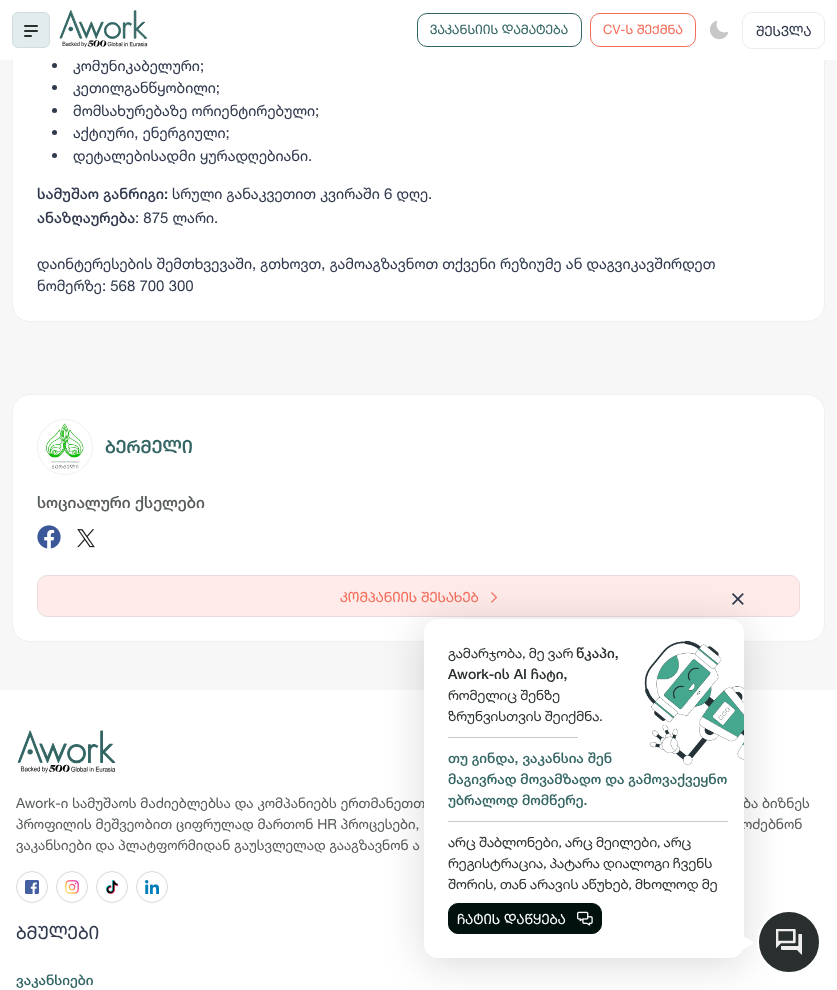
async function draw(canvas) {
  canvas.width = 837
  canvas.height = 990
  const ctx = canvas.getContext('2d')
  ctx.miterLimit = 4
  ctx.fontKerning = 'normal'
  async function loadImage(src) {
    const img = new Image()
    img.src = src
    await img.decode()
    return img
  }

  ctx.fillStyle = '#f7f7f7'
  ctx.fillRect(0, 0, 837, 990)
  ctx.fillStyle = '#fff'
  ctx.beginPath()
  ctx.roundRect(12.5, -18.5, 812, 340, 17.5)
  ctx.fill()
  ctx.strokeStyle = '#f0f0f0'
  ctx.stroke()
  ctx.font = '15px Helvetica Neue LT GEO'
  ctx.fillStyle = '#2f384d'
  ctx.fillText('კომუნიკაბელური;', 73, 71)
  ctx.fillStyle = '#fff'
  ctx.fillRect(0, 0, 837, 60)
  ctx.fillStyle = '#e3ecec'
  ctx.beginPath()
  ctx.roundRect(12.5, 12.5, 37, 35, 5.5)
  ctx.fill()
  ctx.strokeStyle = '#cedede'
  ctx.stroke()
  ctx.drawImage(await loadImage('image0.png'), 24, 25, 14, 12)
  ctx.drawImage(await loadImage('image1.png'), 59, 10, 89, 38)
  ctx.beginPath()
  ctx.roundRect(417.5, 13.5, 164, 33, 9.5)
  ctx.strokeStyle = '#326563'
  ctx.stroke()
  ctx.font = '13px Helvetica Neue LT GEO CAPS'
  ctx.fillStyle = '#326563'
  ctx.fillText('ვაკანსიის დამატება', 430, 34)
  ctx.beginPath()
  ctx.roundRect(590.5, 13.5, 105, 33, 9.5)
  ctx.strokeStyle = '#f46d5b'
  ctx.stroke()
  ctx.fillStyle = '#f46d5b'
  ctx.fillText('CV-ს შექმნა', 603, 34)
  ctx.drawImage(await loadImage('image2.png'), 709, 21, 20, 19)
  ctx.beginPath()
  ctx.roundRect(742.5, 12.5, 82, 36, 9.5)
  ctx.strokeStyle = '#ebebeb'
  ctx.stroke()
  ctx.beginPath()
  ctx.roundRect(743.5, 13.5, 80, 34, 9.5)
  ctx.strokeStyle = '#fff'
  ctx.stroke()
  ctx.font = '14px Helvetica Neue LT GEO CAPS'
  ctx.fillStyle = '#2f384d'
  ctx.fillText('შესვლა', 756, 36)
  ctx.beginPath()
  ctx.arc(54.5, 65.5, 2.5, 0, 2 * Math.PI)
  ctx.fill()
  ctx.beginPath()
  ctx.arc(54.5, 87.5, 2.5, 0, 2 * Math.PI)
  ctx.fill()
  ctx.font = '15px Helvetica Neue LT GEO'
  ctx.fillText('კეთილგანწყობილი;', 73, 93)
  ctx.beginPath()
  ctx.arc(54.5, 110.5, 2.5, 0, 2 * Math.PI)
  ctx.fill()
  ctx.fillText('მომსახურებაზე ორიენტირებული;', 73, 116)
  ctx.beginPath()
  ctx.arc(54.5, 132.5, 2.5, 0, 2 * Math.PI)
  ctx.fill()
  ctx.fillText('აქტიური, ენერგიული;', 73, 138)
  ctx.beginPath()
  ctx.arc(54.5, 155.5, 2.5, 0, 2 * Math.PI)
  ctx.fill()
  ctx.fillText('დეტალებისადმი ყურადღებიანი.', 73, 161)
  ctx.font = '500 15px Helvetica Neue LT GEO'
  ctx.fillText('სამუშაო განრიგი:', 37, 199)
  ctx.font = '15px Helvetica Neue LT GEO'
  ctx.fillText('სრული განაკვეთით კვირაში 6 დღე.', 172, 199)
  ctx.font = '500 15px Helvetica Neue LT GEO'
  ctx.fillText('ანაზღაურება', 37, 223)
  ctx.font = '15px Helvetica Neue LT GEO'
  ctx.fillText(': 875 ლარი.', 135, 223)
  ctx.fillText('დაინტერესების შემთხვევაში, გთხოვთ, გამოაგზავნოთ თქვენი რეზიუმე ან დაგვიკავშირდეთ', 37, 269)
  ctx.fillText('ნომერზე: 568 700 300', 37, 291)
  ctx.fillStyle = '#fff'
  ctx.beginPath()
  ctx.roundRect(12.5, 394.5, 812, 247, 17.5)
  ctx.fill()
  ctx.strokeStyle = '#f0f0f0'
  ctx.stroke()
  ctx.beginPath()
  ctx.arc(65, 447, 27.5, 0, 2 * Math.PI)
  ctx.stroke()
  ctx.drawImage(await loadImage('image3.png'), 45, 423, 39, 46)
  ctx.font = '500 18px Helvetica Neue LT GEO CAPS'
  ctx.fillStyle = '#326563'
  ctx.fillText('ბერმელი', 105, 453)
  ctx.font = '500 16px Helvetica Neue LT GEO'
  ctx.fillStyle = '#575b5b'
  ctx.fillText('სოციალური ქსელები', 37, 508)
  ctx.drawImage(await loadImage('image4.png'), 37, 525, 24, 24)
  ctx.drawImage(await loadImage('image5.png'), 77, 529, 18, 19)
  ctx.fillStyle = '#ffecea'
  ctx.beginPath()
  ctx.roundRect(37.5, 575.5, 762, 41, 9.5)
  ctx.fill()
  ctx.strokeStyle = '#eadcdb'
  ctx.stroke()
  ctx.font = '14px Helvetica Neue LT GEO CAPS'
  ctx.fillStyle = '#f46d5b'
  ctx.fillText('კომპანიის შესახებ', 340, 602)
  ctx.drawImage(await loadImage('image6.png'), 491, 592, 7, 11)
  ctx.fillStyle = '#fff'
  ctx.fillRect(0, 690, 837, 300)
  ctx.drawImage(await loadImage('image7.png'), 17, 730, 99, 43)
  ctx.font = '14px Helvetica Neue LT GEO'
  ctx.fillStyle = '#575b5b'
  ctx.fillText('Awork-ი სამუშაოს მაძიებლებსა და კომპანიებს ერთმანეთთ', 16, 808)
  ctx.fillText('ბა ბიზნეს', 743, 808)
  ctx.fillText('პროფილის მეშვეობით ციფრულად მართონ HR პროცესები,', 16, 829)
  ctx.fillText('ოძებნონ', 742, 829)
  ctx.fillText('ვაკანსიები და პლატფორმიდან გაუსვლელად გააგზავნონ ა', 16, 850)
  ctx.beginPath()
  ctx.arc(32, 887, 15.5, 0, 2 * Math.PI)
  ctx.strokeStyle = '#d9d9d9'
  ctx.stroke()
  ctx.drawImage(await loadImage('image8.png'), 25, 880, 14, 14)
  ctx.beginPath()
  ctx.arc(72, 887, 15.5, 0, 2 * Math.PI)
  ctx.stroke()
  ctx.drawImage(await loadImage('image9.png'), 65, 880, 14, 14)
  ctx.beginPath()
  ctx.arc(112, 887, 15.5, 0, 2 * Math.PI)
  ctx.stroke()
  ctx.drawImage(await loadImage('image10.png'), 105, 880, 14, 14)
  ctx.beginPath()
  ctx.arc(152, 887, 15.5, 0, 2 * Math.PI)
  ctx.stroke()
  ctx.drawImage(await loadImage('image11.png'), 145, 880, 14, 14)
  ctx.font = '18px Helvetica Neue LT GEO CAPS'
  ctx.fillStyle = '#2f384d'
  ctx.fillText('ბმულები', 16, 939)
  ctx.font = '500 14px Helvetica Neue LT GEO'
  ctx.fillStyle = '#326563'
  ctx.fillText('ვაკანსიები', 16, 985)
  ctx.drawImage(await loadImage('image12.png'), 732, 593, 12, 12)
  ctx.fillStyle = '#0f0f0f29'
  ctx.filter = 'blur(20px)'
  ctx.beginPath()
  ctx.roundRect(424, 624, 320, 339, 14)
  ctx.fill()
  ctx.filter = 'none'
  ctx.fillStyle = '#fff'
  ctx.beginPath()
  ctx.roundRect(424, 619, 320, 339, 14)
  ctx.fill()
  ctx.font = '14px Google Sans'
  ctx.fillStyle = '#292e2e'
  ctx.fillText('გამარჯობა, მე ვარ', 448, 658)
  ctx.font = '500 14px Helvetica Neue LT GEO'
  ctx.fillText('წკაპი,', 576, 658)
  ctx.drawImage(await loadImage('image13.png'), 644, 640, 100, 125)
  ctx.fillText('Awork-ის AI ჩატი,', 448, 679)
  ctx.font = '14px Google Sans'
  ctx.fillText('რომელიც შენზე', 448, 700)
  ctx.fillText('ზრუნვისთვის შეიქმნა.', 448, 721)
  ctx.fillStyle = '#cacbcb'
  ctx.fillRect(448, 737, 130, 1)
  ctx.font = '500 14px Helvetica Neue LT GEO'
  ctx.fillStyle = '#326563'
  ctx.fillText('თუ გინდა, ვაკანსია შენ', 448, 763)
  ctx.fillText('მაგივრად მოვამზადო და გამოვაქვეყნო', 448, 784)
  ctx.fillText('უბრალოდ მომწერე.', 448, 805)
  ctx.fillStyle = '#cacbcb'
  ctx.fillRect(448, 821, 280, 1)
  ctx.font = '14px Google Sans'
  ctx.fillStyle = '#292e2e'
  ctx.fillText('არც შაბლონები, არც მეილები, არც', 448, 847)
  ctx.fillText('რეგისტრაცია, პატარა დიალოგი ჩვენს', 448, 868)
  ctx.fillText('შორის, თან არავის აწუხებ, მხოლოდ მე', 448, 889)
  ctx.fillStyle = '#01110e'
  ctx.beginPath()
  ctx.roundRect(448.5, 903.5, 153, 30, 9.5)
  ctx.fill()
  ctx.strokeStyle = '#01110e'
  ctx.stroke()
  ctx.font = '14px Helvetica Neue LT GEO CAPS'
  ctx.fillStyle = '#fff'
  ctx.fillText('ჩატის დაწყება', 457, 924)
  ctx.drawImage(await loadImage('image14.png'), 577, 911, 16, 15)
  ctx.drawImage(await loadImage('image15.png'), 743, 937, 10, 13)
  ctx.fillStyle = '#292e2e'
  ctx.beginPath()
  ctx.arc(789, 942, 31, 0, 2 * Math.PI)
  ctx.fill()
  ctx.strokeStyle = '#fff'
  ctx.lineWidth = 2
  ctx.stroke()
  ctx.drawImage(await loadImage('image16.png'), 776, 929, 26, 26)
}

draw(document.querySelector('canvas'))
